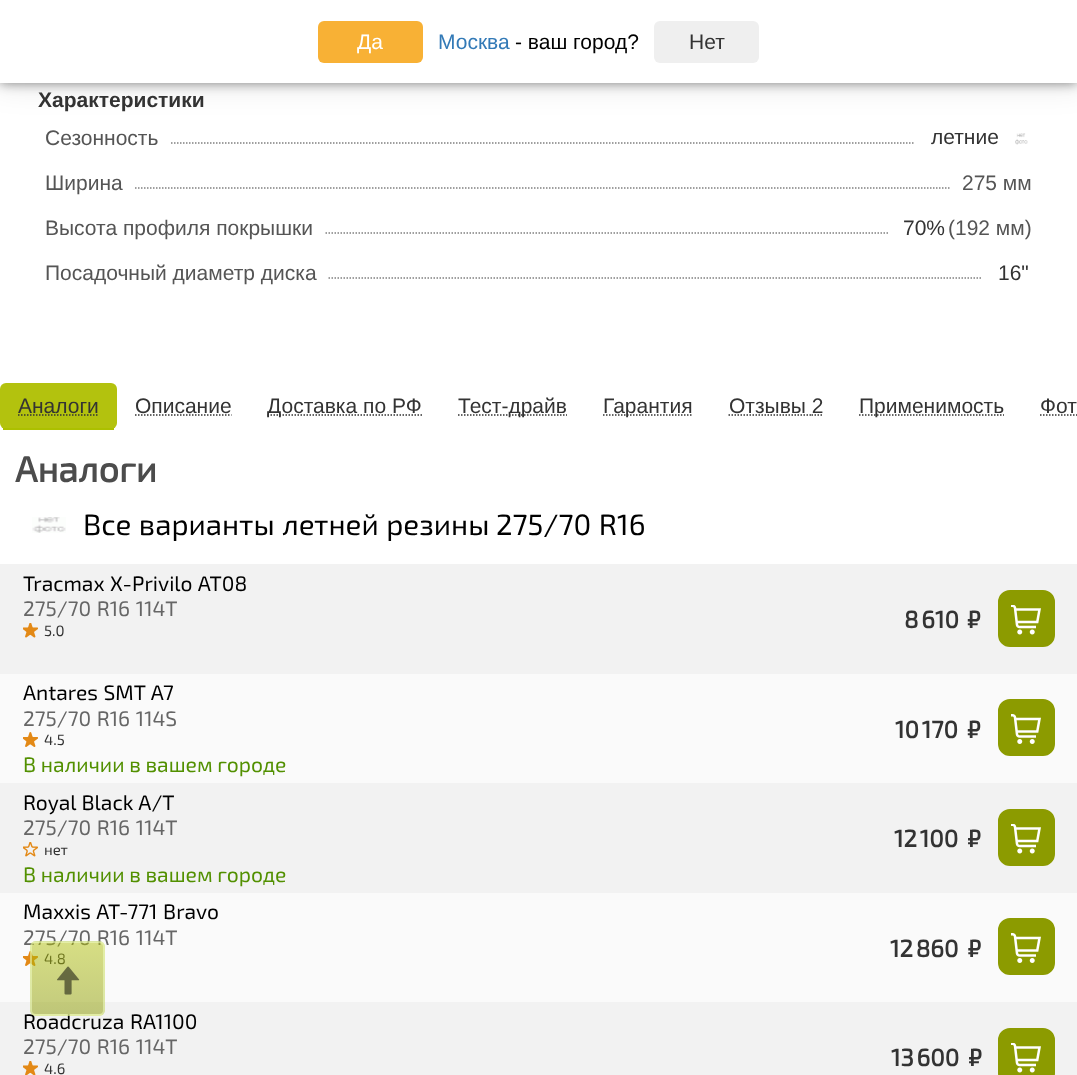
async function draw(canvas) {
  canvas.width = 1077
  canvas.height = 1075
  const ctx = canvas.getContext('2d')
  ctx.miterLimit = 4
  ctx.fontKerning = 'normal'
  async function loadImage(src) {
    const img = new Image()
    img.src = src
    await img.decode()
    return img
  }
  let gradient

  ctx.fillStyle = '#fff'
  ctx.fillRect(0, 0, 1077, 1075)
  ctx.fillStyle = '#00000075'
  ctx.filter = 'blur(6px)'
  ctx.beginPath()
  ctx.rect(0, 0, 1077, 83)
  ctx.fill()
  ctx.filter = 'none'
  ctx.fillStyle = '#0000001a'
  ctx.filter = 'blur(15px)'
  ctx.beginPath()
  ctx.rect(-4, -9, 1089, 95)
  ctx.fill()
  ctx.filter = 'none'
  ctx.fillStyle = '#fff'
  ctx.fillRect(0, 0, 1077, 83)
  ctx.fillStyle = '#f8b135'
  ctx.beginPath()
  ctx.roundRect(318, 21, 105, 42, 6)
  ctx.fill()
  ctx.font = '21px Liberation Sans'
  ctx.fillStyle = '#fff'
  ctx.fillText('Да', 357, 49)
  ctx.fillStyle = '#337ab7'
  ctx.fillText('Москва', 438, 49)
  ctx.fillStyle = '#000'
  ctx.fillText('- ваш город?', 515, 49)
  ctx.fillStyle = '#efefef'
  ctx.beginPath()
  ctx.roundRect(654, 21, 105, 42, 6)
  ctx.fill()
  ctx.fillStyle = '#333'
  ctx.fillText('Нет', 689, 49)
  ctx.font = 'bold 21px Liberation Sans'
  ctx.fillText('Характеристики', 38, 107)
  ctx.font = '21px Liberation Sans'
  ctx.fillStyle = '#555'
  ctx.fillText('Сезонность', 45, 145)
  ctx.beginPath()
  ctx.moveTo(171, 143)
  ctx.lineTo(915, 143)
  ctx.strokeStyle = '#808080'
  ctx.lineWidth = 1.5
  ctx.setLineDash([1.5, 1.5])
  ctx.stroke()
  ctx.fillStyle = '#333'
  ctx.fillText('летние', 931, 144)
  ctx.drawImage(await loadImage('image0.png'), 1015, 133, 13, 12)
  ctx.fillStyle = '#555'
  ctx.fillText('Ширина', 45, 190)
  ctx.beginPath()
  ctx.moveTo(135, 188)
  ctx.lineTo(951, 188)
  ctx.stroke()
  ctx.fillText('275 мм', 962, 190)
  ctx.fillText('Высота профиля покрышки', 45, 235)
  ctx.beginPath()
  ctx.moveTo(325.5, 233)
  ctx.lineTo(888, 233)
  ctx.stroke()
  ctx.fillStyle = '#333'
  ctx.fillText('70%', 903, 235)
  ctx.fillStyle = '#555'
  ctx.fillText('(192 мм)', 948, 235)
  ctx.fillText('Посадочный диаметр диска', 45, 280)
  ctx.beginPath()
  ctx.moveTo(328.5, 278)
  ctx.lineTo(982.5, 278)
  ctx.stroke()
  ctx.fillStyle = '#333'
  ctx.fillText('16"', 998, 280)
  ctx.fillStyle = '#b3c20e'
  ctx.beginPath()
  ctx.roundRect(0, 383, 117, 46, 6)
  ctx.fill()
  ctx.fillStyle = '#acc000'
  ctx.fillRect(3, 428, 111, 2)
  ctx.fillStyle = '#333'
  ctx.fillText('Аналоги', 18, 413)
  ctx.beginPath()
  ctx.moveTo(18, 415)
  ctx.lineTo(99, 415)
  ctx.strokeStyle = '#333'
  ctx.stroke()
  ctx.fillText('Описание', 135, 413)
  ctx.beginPath()
  ctx.moveTo(135, 415)
  ctx.lineTo(231.5, 415)
  ctx.stroke()
  ctx.beginPath()
  ctx.moveTo(267.5, 415)
  ctx.lineTo(422, 415)
  ctx.stroke()
  ctx.fillText('Доставка по РФ', 267, 413)
  ctx.beginPath()
  ctx.moveTo(458, 415)
  ctx.lineTo(567, 415)
  ctx.stroke()
  ctx.fillText('Тест-драйв', 458, 413)
  ctx.beginPath()
  ctx.moveTo(603, 415)
  ctx.lineTo(692.5, 415)
  ctx.stroke()
  ctx.fillText('Гарантия', 603, 413)
  ctx.fillText('Отзывы 2', 729, 413)
  ctx.beginPath()
  ctx.moveTo(728.5, 415)
  ctx.lineTo(811.5, 415)
  ctx.stroke()
  ctx.beginPath()
  ctx.moveTo(811.5, 415)
  ctx.lineTo(823, 415)
  ctx.stroke()
  ctx.beginPath()
  ctx.moveTo(859, 415)
  ctx.lineTo(1004, 415)
  ctx.stroke()
  ctx.fillText('Применимость', 859, 413)
  ctx.fillText('Фот', 1040, 413)
  ctx.beginPath()
  ctx.moveTo(1040, 415)
  ctx.lineTo(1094.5, 415)
  ctx.stroke()
  ctx.font = 'bold 36px "Exo 2"'
  ctx.fillStyle = '#4c4c4c'
  ctx.fillText('Аналоги', 15, 482)
  ctx.drawImage(await loadImage('image1.png'), 32, 517, 34, 16)
  ctx.wordSpacing = '1px'
  ctx.font = '29.4px "Exo 2"'
  ctx.fillStyle = '#000'
  ctx.fillText('Все варианты летней резины', 83, 535)
  ctx.fillText('275/70 R16', 496, 535)
  ctx.fillStyle = '#f2f2f2'
  ctx.fillRect(0, 564, 1077, 511)
  ctx.font = '21px "Exo 2"'
  ctx.fillStyle = '#000'
  ctx.fillText('Tracmax X-Privilo AT08', 23, 591)
  ctx.fillStyle = '#666'
  ctx.fillText('275/70 R16 114T', 23, 616)
  ctx.drawImage(await loadImage('image2.png'), 23, 623, 15, 15)
  ctx.wordSpacing = '0px'
  ctx.font = '15px "Exo 2"'
  ctx.fillStyle = '#333'
  ctx.fillText('5.0', 44, 636)
  ctx.wordSpacing = '3px'
  ctx.font = 'bold 24px "Exo 2"'
  ctx.fillText('8 610 ₽', 904, 628)
  ctx.fillStyle = '#8c9b00'
  ctx.beginPath()
  ctx.roundRect(999, 591, 55, 55, 11)
  ctx.fill()
  ctx.strokeStyle = '#8c9b00'
  ctx.lineWidth = 2
  ctx.setLineDash([])
  ctx.stroke()
  ctx.drawImage(await loadImage('image3.png'), 1011, 605, 30, 30)
  ctx.fillStyle = '#fafafa'
  ctx.fillRect(0, 674, 1077, 109)
  ctx.wordSpacing = '1px'
  ctx.font = '21px "Exo 2"'
  ctx.fillStyle = '#000'
  ctx.fillText('Antares SMT A7', 23, 700)
  ctx.fillStyle = '#666'
  ctx.fillText('275/70 R16 114S', 23, 726)
  ctx.drawImage(await loadImage('image4.png'), 23, 732, 15, 15)
  ctx.wordSpacing = '0px'
  ctx.font = '15px "Exo 2"'
  ctx.fillStyle = '#333'
  ctx.fillText('4.5', 44, 745)
  ctx.font = '21px "Exo 2"'
  ctx.fillStyle = '#529000'
  ctx.fillText('В наличии в вашем городе', 23, 772)
  ctx.wordSpacing = '4px'
  ctx.font = 'bold 24px "Exo 2"'
  ctx.fillStyle = '#333'
  ctx.fillText('10 170 ₽', 895, 738)
  ctx.fillStyle = '#8c9b00'
  ctx.beginPath()
  ctx.roundRect(999, 700, 55, 55, 11)
  ctx.fill()
  ctx.stroke()
  ctx.drawImage(await loadImage('image5.png'), 1011, 714, 30, 30)
  ctx.wordSpacing = '1px'
  ctx.font = '21px "Exo 2"'
  ctx.fillStyle = '#000'
  ctx.fillText('Royal Black A/T', 23, 810)
  ctx.fillStyle = '#666'
  ctx.fillText('275/70 R16 114T', 23, 835)
  ctx.drawImage(await loadImage('image6.png'), 23, 842, 15, 15)
  ctx.wordSpacing = '0px'
  ctx.font = '15px "Exo 2"'
  ctx.fillStyle = '#333'
  ctx.fillText('нет', 44, 855)
  ctx.font = '21px "Exo 2"'
  ctx.fillStyle = '#529000'
  ctx.fillText('В наличии в вашем городе', 23, 882)
  ctx.wordSpacing = '4px'
  ctx.font = 'bold 24px "Exo 2"'
  ctx.fillStyle = '#333'
  ctx.fillText('12 100 ₽', 894, 847)
  ctx.fillStyle = '#8c9b00'
  ctx.beginPath()
  ctx.roundRect(999, 810, 55, 55, 11)
  ctx.fill()
  ctx.stroke()
  ctx.drawImage(await loadImage('image3.png'), 1011, 824, 30, 30)
  ctx.fillStyle = '#fafafa'
  ctx.fillRect(0, 893, 1077, 109)
  ctx.wordSpacing = '1px'
  ctx.font = '21px "Exo 2"'
  ctx.fillStyle = '#000'
  ctx.fillText('Maxxis AT-771 Bravo', 23, 919)
  ctx.fillStyle = '#666'
  ctx.fillText('275/70 R16 114T', 23, 945)
  ctx.drawImage(await loadImage('image4.png'), 23, 951, 15, 15)
  ctx.wordSpacing = '0px'
  ctx.font = '15px "Exo 2"'
  ctx.fillStyle = '#333'
  ctx.fillText('4.8', 44, 964)
  ctx.wordSpacing = '4px'
  ctx.font = 'bold 24px "Exo 2"'
  ctx.fillText('12 860 ₽', 890, 957)
  ctx.fillStyle = '#8c9b00'
  ctx.beginPath()
  ctx.roundRect(999, 919, 55, 55, 11)
  ctx.fill()
  ctx.stroke()
  ctx.drawImage(await loadImage('image5.png'), 1011, 933, 30, 30)
  ctx.wordSpacing = '1px'
  ctx.font = '21px "Exo 2"'
  ctx.fillStyle = '#000'
  ctx.fillText('Roadcruza RA1100', 23, 1029)
  ctx.fillStyle = '#666'
  ctx.fillText('275/70 R16 114T', 23, 1054)
  ctx.drawImage(await loadImage('image7.png'), 23, 1061, 15, 14)
  ctx.wordSpacing = '0px'
  ctx.font = '15px "Exo 2"'
  ctx.fillStyle = '#333'
  ctx.fillText('4.6', 44, 1074)
  ctx.wordSpacing = '4px'
  ctx.font = 'bold 24px "Exo 2"'
  ctx.fillText('13 600 ₽', 891, 1066)
  ctx.fillStyle = '#8c9b00'
  ctx.beginPath()
  ctx.roundRect(999, 1029, 55, 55, 11)
  ctx.fill()
  ctx.stroke()
  ctx.drawImage(await loadImage('image3.png'), 1011, 1043, 30, 30)
  ctx.save()
  ctx.beginPath()
  ctx.roundRect(30, 941, 75, 75, 6)
  ctx.clip()
  gradient = ctx.createLinearGradient(68, 870, 68, 942)
  gradient.addColorStop(0, '#b3c20e80')
  gradient.addColorStop(1, '#8c9b0080')
  ctx.fillStyle = gradient
  ctx.fillRect(30, 941, 75, 1)
  gradient = ctx.createLinearGradient(68, 942, 68, 1014)
  gradient.addColorStop(0, '#b3c20e80')
  gradient.addColorStop(1, '#8c9b0080')
  ctx.fillStyle = gradient
  ctx.fillRect(30, 942, 75, 72)
  gradient = ctx.createLinearGradient(68, 1014, 68, 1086)
  gradient.addColorStop(0, '#b3c20e80')
  gradient.addColorStop(1, '#8c9b0080')
  ctx.fillStyle = gradient
  ctx.fillRect(30, 1014, 75, 2)
  ctx.restore()
  ctx.beginPath()
  ctx.roundRect(31, 942, 73, 73, 5)
  ctx.strokeStyle = '#f2ffca80'
  ctx.stroke()
  ctx.drawImage(await loadImage('image8.png'), 57, 966, 23, 29)
}

draw(document.querySelector('canvas'))
